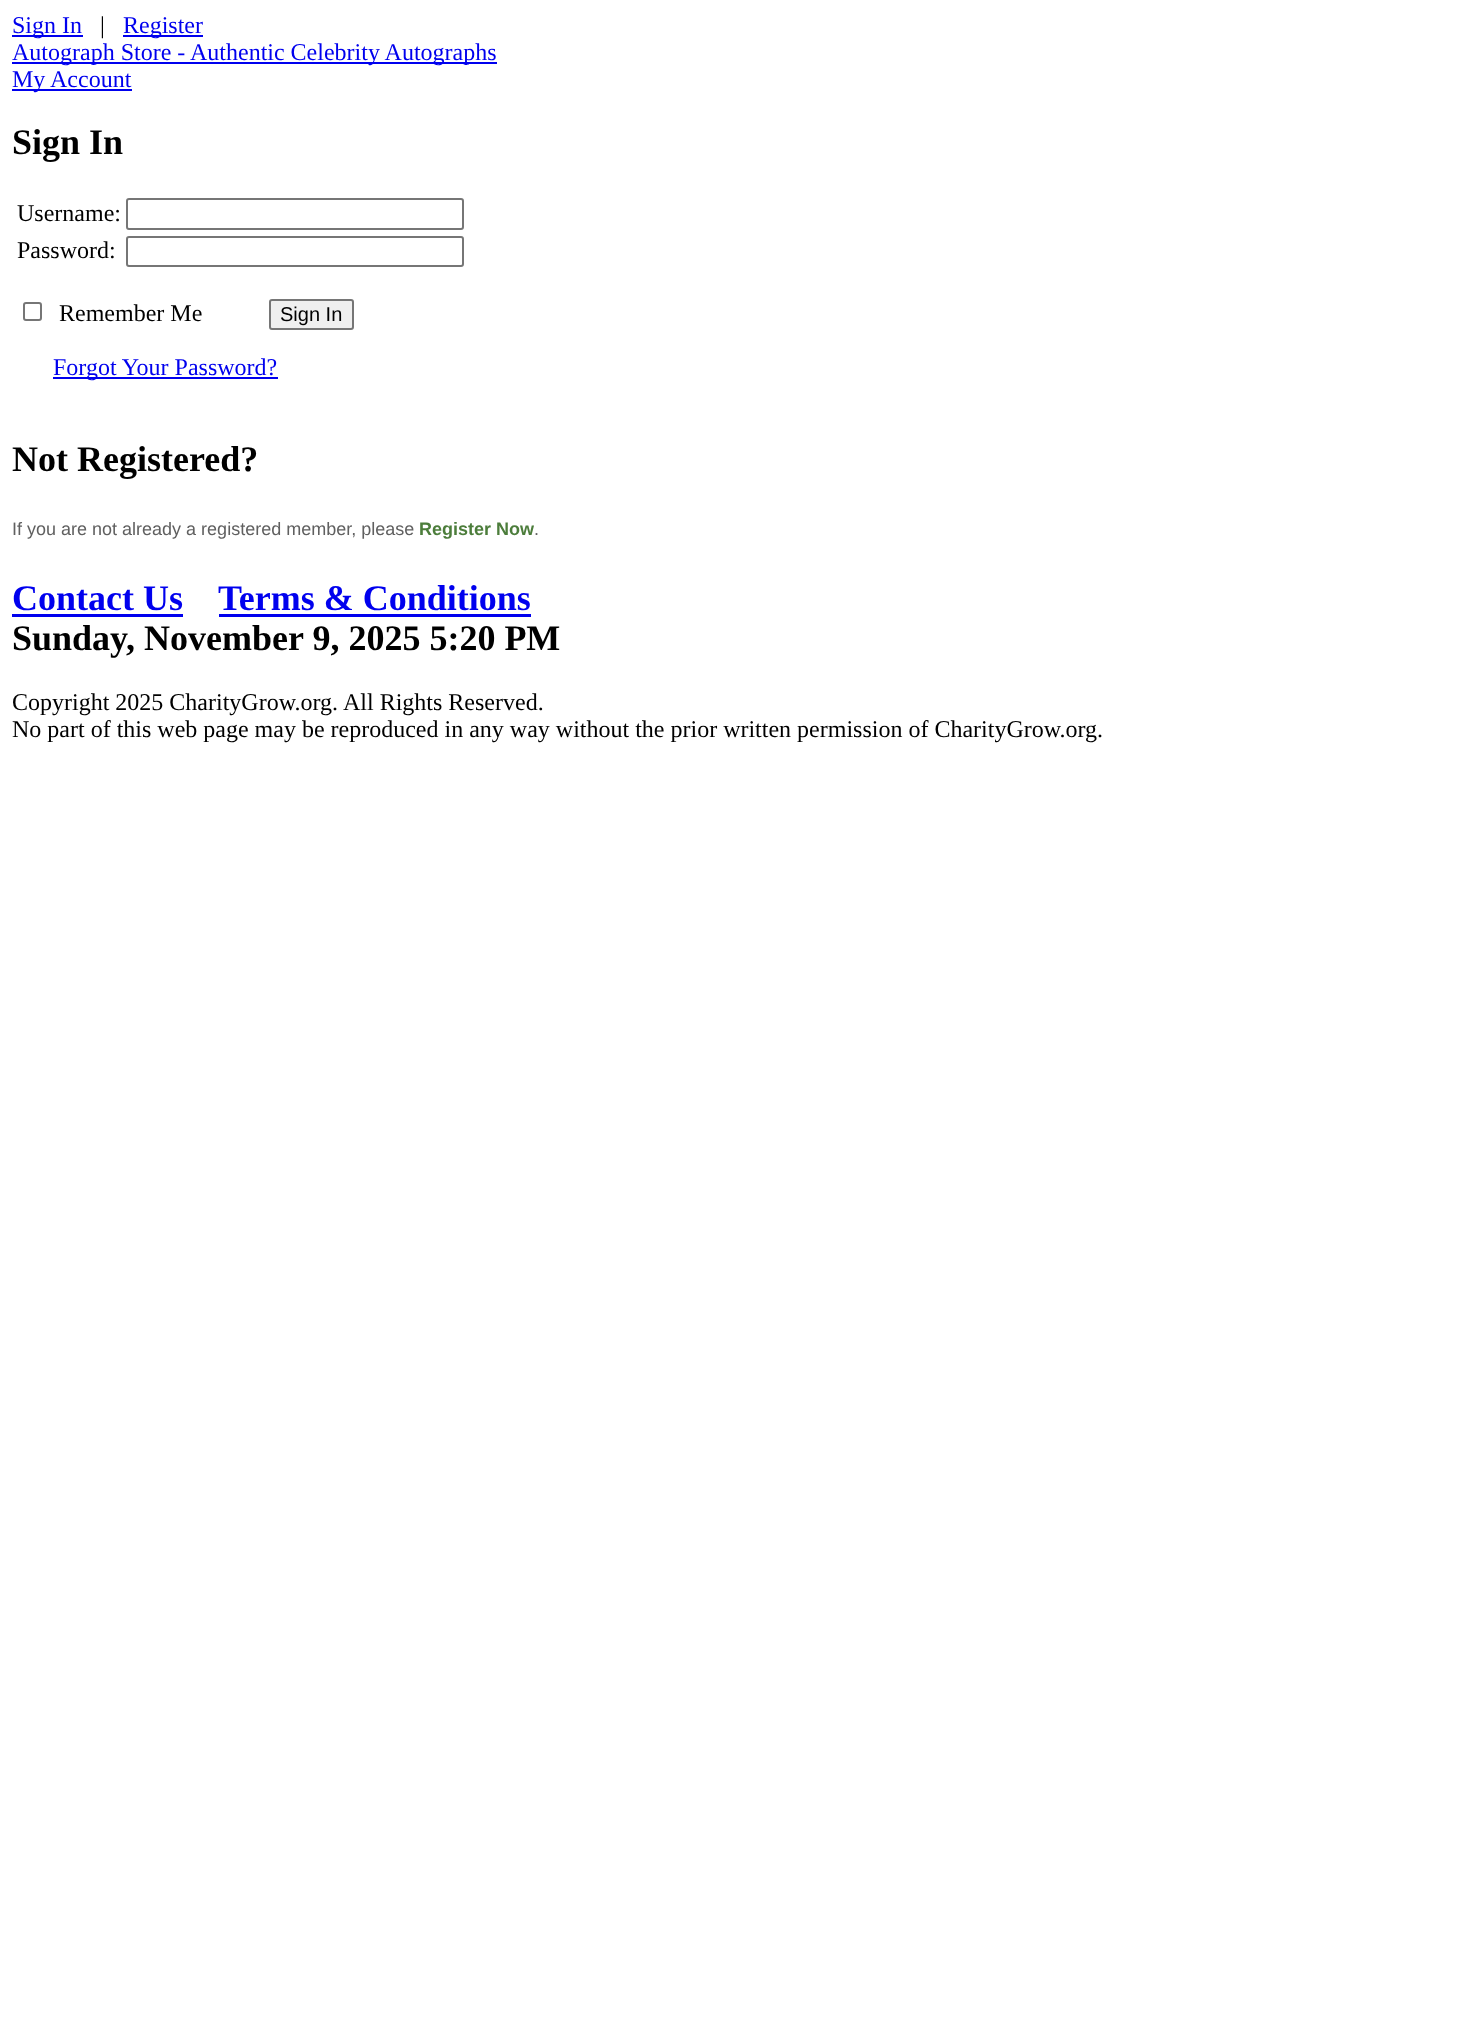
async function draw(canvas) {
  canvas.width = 1474
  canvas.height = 2025
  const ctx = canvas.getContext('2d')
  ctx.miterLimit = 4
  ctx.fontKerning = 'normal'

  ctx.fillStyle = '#fff'
  ctx.fillRect(0, 0, 1474, 2025)
  ctx.fillStyle = '#00e'
  ctx.fillRect(12, 35, 71, 2)
  ctx.font = '24px Liberation Serif'
  ctx.fillText('Sign In', 12, 33)
  ctx.fillStyle = '#000'
  ctx.fillText('|', 100, 33)
  ctx.fillStyle = '#00e'
  ctx.fillRect(123, 35, 80, 2)
  ctx.fillText('Register', 123, 33)
  ctx.fillRect(12, 62, 485, 2)
  ctx.fillText('Autograph Store - Authentic Celebrity Autographs', 12, 60)
  ctx.fillRect(12, 89, 120, 2)
  ctx.fillText('My Account', 12, 87)
  ctx.font = 'bold 36px Liberation Serif'
  ctx.fillStyle = '#000'
  ctx.fillText('Sign In', 12, 154)
  ctx.font = '24px Liberation Serif'
  ctx.fillText('Username:', 17, 221)
  ctx.beginPath()
  ctx.roundRect(127, 199, 336, 30, 2)
  ctx.strokeStyle = '#767676'
  ctx.lineWidth = 2
  ctx.stroke()
  ctx.fillText('Password:', 17, 258)
  ctx.beginPath()
  ctx.roundRect(127, 237, 336, 29, 2)
  ctx.stroke()
  ctx.beginPath()
  ctx.roundRect(24, 303, 17, 17, 2)
  ctx.stroke()
  ctx.fillText('Remember Me', 59, 321)
  ctx.fillStyle = '#efefef'
  ctx.beginPath()
  ctx.roundRect(270, 300, 83, 29, 2)
  ctx.fill()
  ctx.stroke()
  ctx.font = '20px Liberation Sans'
  ctx.fillStyle = '#000'
  ctx.fillText('Sign In', 280, 321)
  ctx.fillStyle = '#00e'
  ctx.fillRect(53, 377, 225, 2)
  ctx.font = '24px Liberation Serif'
  ctx.fillText('Forgot Your Password?', 53, 375)
  ctx.font = 'bold 36px Liberation Serif'
  ctx.fillStyle = '#000'
  ctx.fillText('Not Registered?', 12, 471)
  ctx.font = '18px Liberation Sans'
  ctx.fillStyle = '#606060'
  ctx.fillText('If you are not already a registered member, please', 12, 535)
  ctx.font = 'bold 18px Liberation Sans'
  ctx.fillStyle = '#4c7d3b'
  ctx.fillText('Register Now', 419, 535)
  ctx.font = '18px Liberation Sans'
  ctx.fillStyle = '#606060'
  ctx.fillText('.', 534, 535)
  ctx.font = 'bold 36px Liberation Serif'
  ctx.fillStyle = '#00e'
  ctx.fillText('Contact Us', 12, 610)
  ctx.fillRect(12, 614, 171, 3)
  ctx.fillText('Terms & Conditions', 218, 610)
  ctx.fillRect(219, 614, 312, 3)
  ctx.fillStyle = '#000'
  ctx.fillText('Sunday, November 9, 2025 5:20 PM', 12, 650)
  ctx.font = '24px Liberation Serif'
  ctx.fillText('Copyright 2025 CharityGrow.org.', 12, 710)
  ctx.fillText('All Rights Reserved.', 343, 710)
  ctx.fillText('No part of this web page may be reproduced in any way without the prior written permission of CharityGrow.org.', 12, 737)
}

draw(document.querySelector('canvas'))
